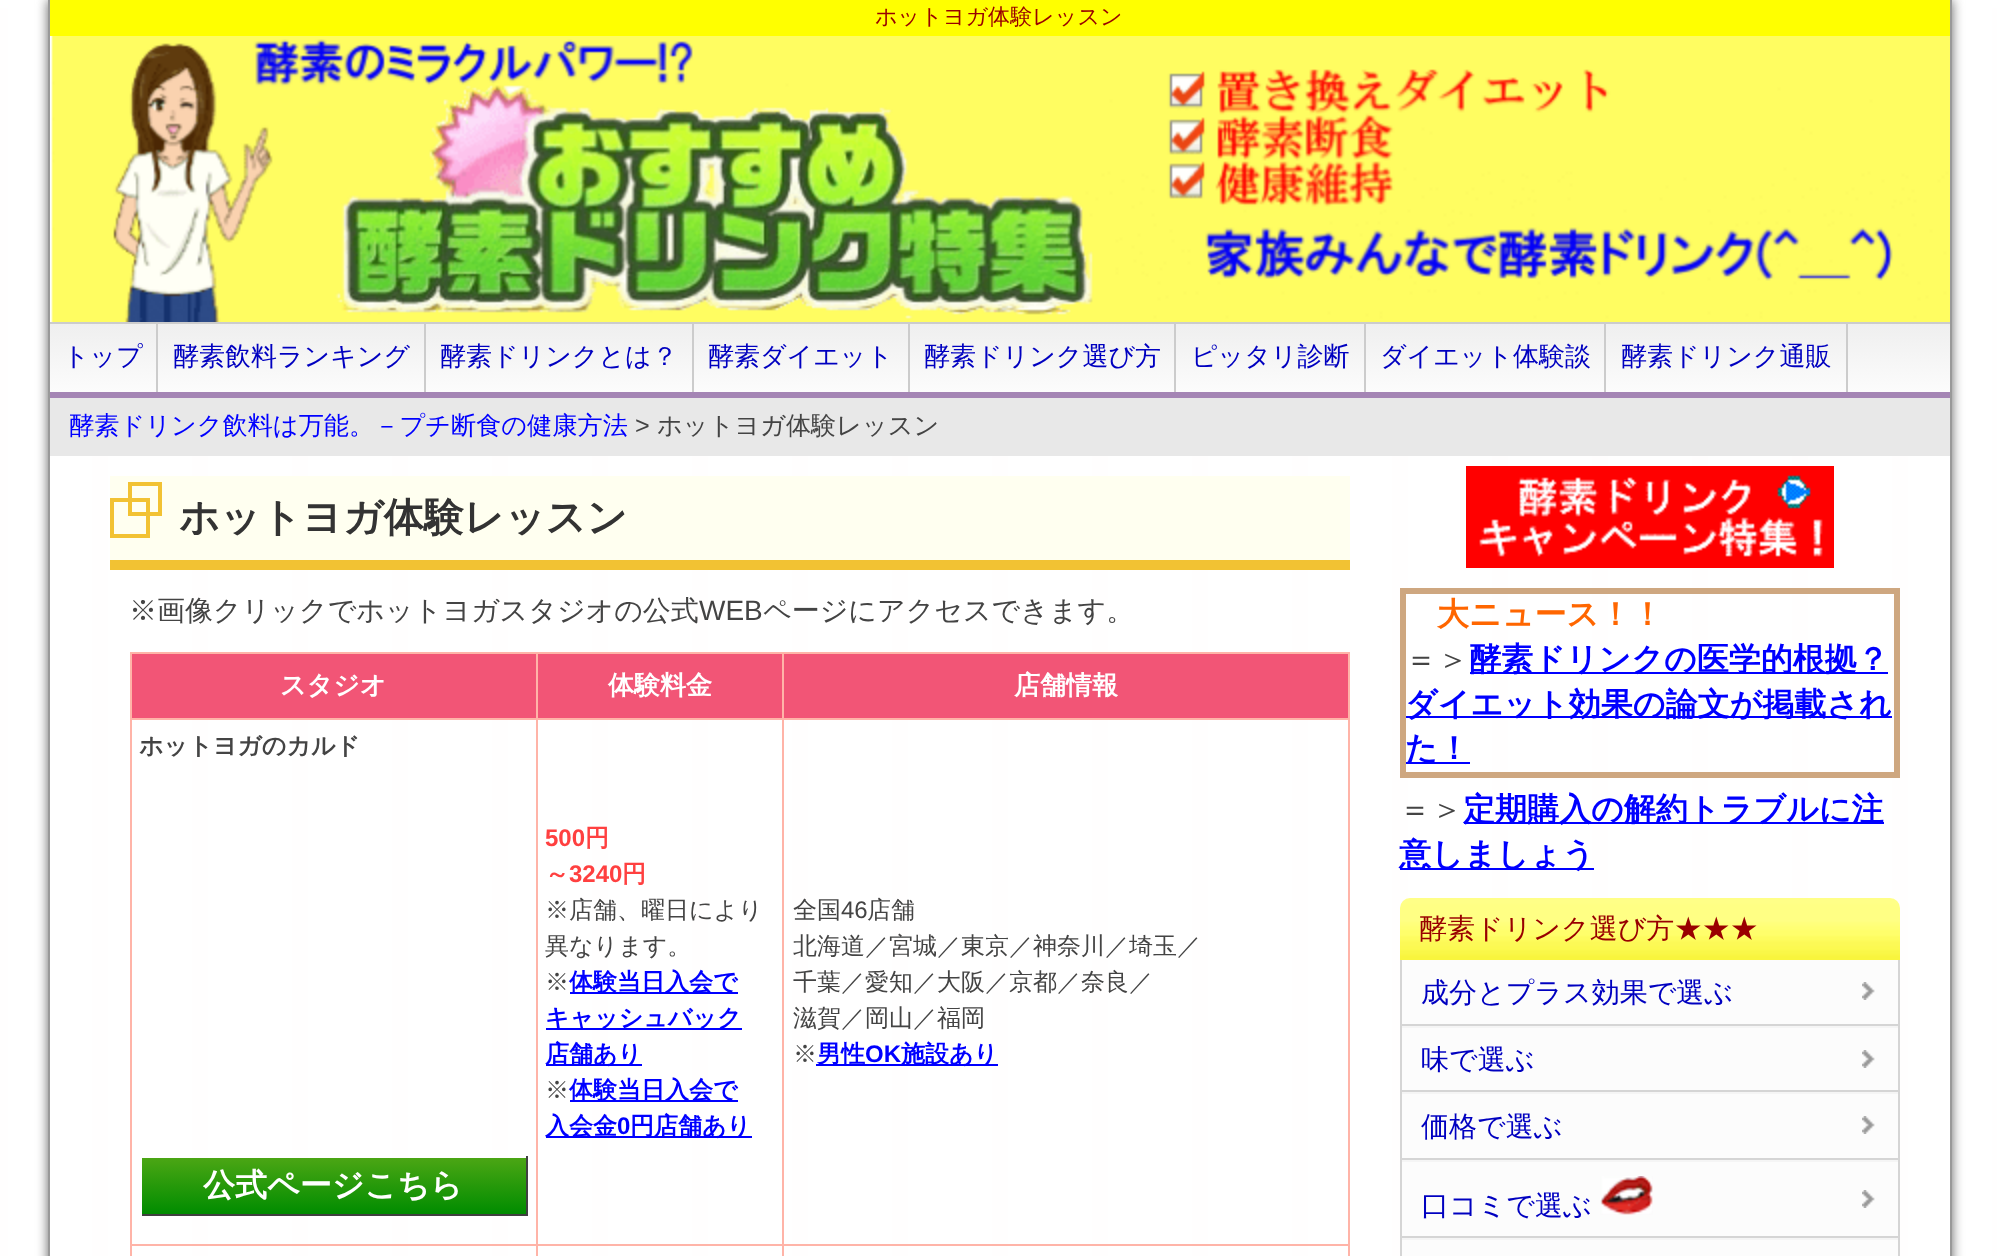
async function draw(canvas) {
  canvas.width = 1997
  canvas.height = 1256
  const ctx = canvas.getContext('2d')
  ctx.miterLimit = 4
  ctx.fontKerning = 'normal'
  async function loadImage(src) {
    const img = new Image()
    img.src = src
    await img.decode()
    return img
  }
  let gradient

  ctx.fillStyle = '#fff'
  ctx.fillRect(0, 0, 1997, 1256)
  ctx.drawImage(await loadImage('image0.png'), 0, 8, 1997, 1248)
  ctx.save()
  ctx.beginPath()
  ctx.moveTo(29, 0)
  ctx.lineTo(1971, 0)
  ctx.lineTo(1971, 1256)
  ctx.lineTo(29, 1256)
  ctx.closePath()
  ctx.moveTo(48, 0)
  ctx.lineTo(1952, 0)
  ctx.lineTo(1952, 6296)
  ctx.lineTo(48, 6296)
  ctx.closePath()
  ctx.clip('evenodd')
  ctx.fillStyle = '#666'
  ctx.filter = 'blur(6px)'
  ctx.beginPath()
  ctx.rect(48, 0, 1904, 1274)
  ctx.fill()
  ctx.filter = 'none'
  ctx.restore()
  ctx.fillStyle = '#999'
  ctx.fillRect(1950, 0, 2, 1256)
  ctx.fillRect(48, 0, 2, 1256)
  ctx.fillStyle = '#ff0'
  ctx.fillRect(50, 0, 1900, 36)
  ctx.font = '500 22.1px WenQuanYi Zen Hei'
  ctx.fillStyle = '#900'
  ctx.fillText('ホットヨガ体験レッスン', 875, 24)
  ctx.drawImage(await loadImage('image1.png'), 51, 36, 1899, 286)
  gradient = ctx.createLinearGradient(1000, 324, 1000, 392)
  gradient.addColorStop(0, '#efefef')
  gradient.addColorStop(1, '#fcfcfc')
  ctx.fillStyle = gradient
  ctx.fillRect(50, 324, 1900, 68)
  ctx.fillStyle = '#ccc'
  ctx.fillRect(50, 322, 1900, 2)
  ctx.fillStyle = '#a485b4'
  ctx.fillRect(50, 392, 1900, 6)
  ctx.fillStyle = '#ccc'
  ctx.fillRect(156, 324, 2, 68)
  ctx.font = '500 26px WenQuanYi Zen Hei'
  ctx.fillStyle = '#0000c0'
  ctx.fillText('トップ', 63, 365)
  ctx.fillStyle = '#ccc'
  ctx.fillRect(424, 324, 2, 68)
  ctx.fillStyle = '#0000c0'
  ctx.fillText('酵素飲料ランキング', 173, 365)
  ctx.fillStyle = '#ccc'
  ctx.fillRect(692, 324, 2, 68)
  ctx.fillStyle = '#0000c0'
  ctx.fillText('酵素ドリンクとは？', 440, 365)
  ctx.fillStyle = '#ccc'
  ctx.fillRect(908, 324, 2, 68)
  ctx.fillStyle = '#0000c0'
  ctx.fillText('酵素ダイエット', 708, 365)
  ctx.fillStyle = '#ccc'
  ctx.fillRect(1174, 324, 2, 68)
  ctx.fillStyle = '#0000c0'
  ctx.fillText('酵素ドリンク選び方', 924, 365)
  ctx.fillStyle = '#ccc'
  ctx.fillRect(1364, 324, 2, 68)
  ctx.fillStyle = '#0000c0'
  ctx.fillText('ピッタリ診断', 1191, 365)
  ctx.fillStyle = '#ccc'
  ctx.fillRect(1604, 324, 2, 68)
  ctx.fillStyle = '#0000c0'
  ctx.fillText('ダイエット体験談', 1380, 365)
  ctx.fillStyle = '#ccc'
  ctx.fillRect(1846, 324, 2, 68)
  ctx.fillStyle = '#0000c0'
  ctx.fillText('酵素ドリンク通販', 1621, 365)
  ctx.fillStyle = '#e8e8e8'
  ctx.fillRect(50, 398, 1900, 58)
  ctx.font = '500 25.2px WenQuanYi Zen Hei'
  ctx.fillStyle = '#00f'
  ctx.fillText('酵素ドリンク飲料は万能。－プチ断食の健康方法', 69, 434)
  ctx.font = '25.2px Liberation Sans'
  ctx.fillStyle = '#444'
  ctx.fillText('>', 635, 434)
  ctx.font = '500 25.2px WenQuanYi Zen Hei'
  ctx.fillText('ホットヨガ体験レッスン', 657, 434)
  ctx.fillStyle = '#fffff0'
  ctx.fillRect(110, 476, 1240, 84)
  ctx.fillStyle = '#f2c233'
  ctx.fillRect(110, 560, 1240, 10)
  ctx.strokeStyle = '#f2c233'
  ctx.lineWidth = 4
  ctx.strokeRect(112, 500, 36, 36)
  ctx.strokeRect(130, 484, 30, 30)
  ctx.font = 'bold 40px WenQuanYi Zen Hei'
  ctx.fillStyle = '#333'
  ctx.fillText('ホットヨガ体験レッスン', 179, 531)
  ctx.font = '500 28px WenQuanYi Zen Hei'
  ctx.fillStyle = '#444'
  ctx.fillText('※画像クリックでホットヨガスタジオの公式', 129, 620)
  ctx.font = '28px Liberation Sans'
  ctx.fillText('WEB', 699, 620)
  ctx.font = '500 28px WenQuanYi Zen Hei'
  ctx.fillText('ページにアクセスできます。', 763, 620)
  ctx.fillStyle = '#f25576'
  ctx.fillRect(132, 654, 404, 64)
  ctx.fillStyle = '#ffb4a8'
  ctx.fillRect(782, 652, 568, 2)
  ctx.fillRect(782, 718, 568, 2)
  ctx.fillRect(782, 1244, 568, 2)
  ctx.fillRect(782, 1244, 2, 12)
  ctx.fillRect(536, 1244, 248, 2)
  ctx.fillRect(782, 718, 2, 528)
  ctx.fillRect(536, 718, 248, 2)
  ctx.fillRect(782, 652, 2, 68)
  ctx.fillRect(536, 652, 248, 2)
  ctx.fillRect(536, 1244, 2, 12)
  ctx.fillRect(130, 1244, 408, 2)
  ctx.fillRect(536, 718, 2, 528)
  ctx.fillRect(130, 718, 408, 2)
  ctx.fillRect(536, 652, 2, 68)
  ctx.fillRect(130, 652, 408, 2)
  ctx.fillRect(130, 1244, 2, 12)
  ctx.fillRect(130, 718, 2, 528)
  ctx.fillRect(130, 652, 2, 68)
  ctx.font = 'bold 26px WenQuanYi Zen Hei'
  ctx.fillStyle = '#fff'
  ctx.fillText('スタジオ', 280, 694)
  ctx.fillStyle = '#f25576'
  ctx.fillRect(538, 654, 244, 64)
  ctx.fillStyle = '#fff'
  ctx.fillText('体験料金', 608, 694)
  ctx.fillStyle = '#f25576'
  ctx.fillRect(784, 654, 564, 64)
  ctx.fillStyle = '#ffb4a8'
  ctx.fillRect(1348, 1244, 2, 12)
  ctx.fillRect(1348, 718, 2, 528)
  ctx.fillRect(1348, 652, 2, 68)
  ctx.fillStyle = '#fff'
  ctx.fillText('店舗情報', 1014, 694)
  ctx.font = 'bold 24px WenQuanYi Zen Hei'
  ctx.fillStyle = '#444'
  ctx.fillText('ホットヨガのカルド', 139, 754)
  gradient = ctx.createLinearGradient(334, 1158, 334, 1214)
  gradient.addColorStop(0, '#4ba614')
  gradient.addColorStop(1, '#008c00')
  ctx.fillStyle = gradient
  ctx.fillRect(142, 1158, 384, 56)
  ctx.fillStyle = '#404040'
  ctx.fillRect(526, 1156, 2, 60)
  ctx.fillRect(140, 1214, 388, 2)
  ctx.fillStyle = '#fff'
  ctx.fillRect(140, 1214, 2, 2)
  ctx.font = 'bold 32px WenQuanYi Zen Hei'
  ctx.fillText('公式ページこちら', 203, 1196)
  ctx.font = 'bold 24px Liberation Sans'
  ctx.fillStyle = '#ff4040'
  ctx.fillText('500', 545, 846)
  ctx.font = 'bold 24px WenQuanYi Zen Hei'
  ctx.fillText('円', 585, 846)
  ctx.fillText('～', 545, 882)
  ctx.font = 'bold 24px Liberation Sans'
  ctx.fillText('3240', 569, 882)
  ctx.font = 'bold 24px WenQuanYi Zen Hei'
  ctx.fillText('円', 622, 882)
  ctx.font = '500 24px WenQuanYi Zen Hei'
  ctx.fillStyle = '#444'
  ctx.fillText('※店舗、曜日により', 545, 918)
  ctx.fillText('異なります。', 545, 954)
  ctx.fillText('※', 545, 990)
  ctx.fillStyle = '#00f'
  ctx.fillRect(570, 992, 168, 2)
  ctx.font = 'bold 24px WenQuanYi Zen Hei'
  ctx.fillText('体験当日入会で', 569, 990)
  ctx.fillRect(546, 1028, 196, 2)
  ctx.fillText('キャッシュバック', 545, 1026)
  ctx.fillRect(546, 1064, 96, 2)
  ctx.fillText('店舗あり', 545, 1062)
  ctx.font = '500 24px WenQuanYi Zen Hei'
  ctx.fillStyle = '#444'
  ctx.fillText('※', 545, 1098)
  ctx.fillStyle = '#00f'
  ctx.fillRect(570, 1100, 168, 2)
  ctx.font = 'bold 24px WenQuanYi Zen Hei'
  ctx.fillText('体験当日入会で', 569, 1098)
  ctx.fillRect(546, 1136, 206, 2)
  ctx.fillText('入会金', 545, 1134)
  ctx.font = 'bold 24px Liberation Sans'
  ctx.fillText('0', 617, 1134)
  ctx.font = 'bold 24px WenQuanYi Zen Hei'
  ctx.fillText('円店舗あり', 630, 1134)
  ctx.font = '500 24px WenQuanYi Zen Hei'
  ctx.fillStyle = '#444'
  ctx.fillText('全国', 793, 918)
  ctx.font = '24px Liberation Sans'
  ctx.fillText('46', 841, 918)
  ctx.font = '500 24px WenQuanYi Zen Hei'
  ctx.fillText('店舗', 867, 918)
  ctx.fillText('北海道／宮城／東京／神奈川／埼玉／', 793, 954)
  ctx.fillText('千葉／愛知／大阪／京都／奈良／', 793, 990)
  ctx.fillText('滋賀／岡山／福岡', 793, 1026)
  ctx.fillText('※', 793, 1062)
  ctx.fillStyle = '#00f'
  ctx.fillRect(816, 1064, 182, 2)
  ctx.font = 'bold 24px WenQuanYi Zen Hei'
  ctx.fillText('男性', 817, 1062)
  ctx.font = 'bold 24px Liberation Sans'
  ctx.fillText('OK', 865, 1062)
  ctx.font = 'bold 24px WenQuanYi Zen Hei'
  ctx.fillText('施設あり', 901, 1062)
  ctx.drawImage(await loadImage('image2.png'), 1466, 466, 368, 102)
  ctx.fillStyle = '#cea780'
  ctx.fillRect(1400, 588, 500, 6)
  ctx.fillRect(1894, 588, 6, 190)
  ctx.fillRect(1400, 772, 500, 6)
  ctx.fillRect(1400, 588, 6, 190)
  ctx.font = 'bold 32px WenQuanYi Zen Hei'
  ctx.fillStyle = '#f60'
  ctx.fillText('大ニュース！！', 1437, 625)
  ctx.font = '500 32px WenQuanYi Zen Hei'
  ctx.fillStyle = '#444'
  ctx.fillText('＝＞', 1405, 670)
  ctx.fillStyle = '#00f'
  ctx.fillRect(1470, 672, 418, 2)
  ctx.font = 'bold 32px WenQuanYi Zen Hei'
  ctx.fillText('酵素ドリンクの医学的根拠？', 1469, 670)
  ctx.fillRect(1406, 716, 486, 2)
  ctx.fillText('ダイエット効果の論文が掲載され', 1405, 715)
  ctx.fillRect(1406, 762, 64, 2)
  ctx.fillText('た！', 1405, 759)
  ctx.font = '500 32px WenQuanYi Zen Hei'
  ctx.fillStyle = '#444'
  ctx.fillText('＝＞', 1399, 820)
  ctx.fillStyle = '#00f'
  ctx.fillRect(1464, 822, 420, 2)
  ctx.font = 'bold 32px WenQuanYi Zen Hei'
  ctx.fillText('定期購入の解約トラブルに注', 1463, 820)
  ctx.fillRect(1400, 868, 194, 2)
  ctx.fillText('意しましょう', 1399, 865)
  ctx.drawImage(await loadImage('image3.png'), 1400, 898, 500, 62)
  ctx.font = '500 28px WenQuanYi Zen Hei'
  ctx.fillStyle = '#900'
  ctx.fillText('酵素ドリンク選び方★★★', 1419, 938)
  ctx.fillStyle = '#fcfcfc'
  ctx.fillRect(1402, 960, 496, 296)
  ctx.fillStyle = '#d5d5d5'
  ctx.beginPath()
  ctx.moveTo(1400, 960)
  ctx.lineTo(1900, 960)
  ctx.lineTo(1900, 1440)
  ctx.bezierCurveTo(1900, 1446, 1896, 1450, 1890, 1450)
  ctx.lineTo(1410, 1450)
  ctx.bezierCurveTo(1404, 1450, 1400, 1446, 1400, 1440)
  ctx.closePath()
  ctx.moveTo(1402, 960)
  ctx.lineTo(1898, 960)
  ctx.lineTo(1898, 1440)
  ctx.bezierCurveTo(1898, 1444, 1894, 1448, 1890, 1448)
  ctx.lineTo(1410, 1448)
  ctx.bezierCurveTo(1406, 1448, 1402, 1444, 1402, 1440)
  ctx.closePath()
  ctx.fill('evenodd')
  ctx.drawImage(await loadImage('image4.png'), 1862, 982, 13, 18)
  ctx.fillStyle = '#0000c0'
  ctx.fillText('成分とプラス効果で選ぶ', 1421, 1002)
  ctx.fillStyle = '#d5d5d5'
  ctx.fillRect(1402, 1024, 496, 2)
  ctx.drawImage(await loadImage('image4.png'), 1862, 1050, 13, 18)
  ctx.fillStyle = '#f5f5f5'
  ctx.fillRect(1402, 1026, 496, 2)
  ctx.fillStyle = '#0000c0'
  ctx.fillText('味で選ぶ', 1421, 1069)
  ctx.fillStyle = '#d5d5d5'
  ctx.fillRect(1402, 1090, 496, 2)
  ctx.drawImage(await loadImage('image4.png'), 1862, 1116, 13, 18)
  ctx.fillStyle = '#f5f5f5'
  ctx.fillRect(1402, 1092, 496, 2)
  ctx.fillStyle = '#0000c0'
  ctx.fillText('価格で選ぶ', 1421, 1136)
  ctx.fillStyle = '#d5d5d5'
  ctx.fillRect(1402, 1158, 496, 2)
  ctx.drawImage(await loadImage('image4.png'), 1862, 1190, 13, 18)
  ctx.fillStyle = '#f5f5f5'
  ctx.fillRect(1402, 1160, 496, 2)
  ctx.fillStyle = '#0000c0'
  ctx.fillText('口コミで選ぶ', 1421, 1215)
  ctx.drawImage(await loadImage('image5.png'), 1600, 1176, 53, 39)
  ctx.fillStyle = '#d5d5d5'
  ctx.fillRect(1402, 1236, 496, 2)
  ctx.fillStyle = '#f5f5f5'
  ctx.fillRect(1402, 1238, 496, 2)
}

draw(document.querySelector('canvas'))
